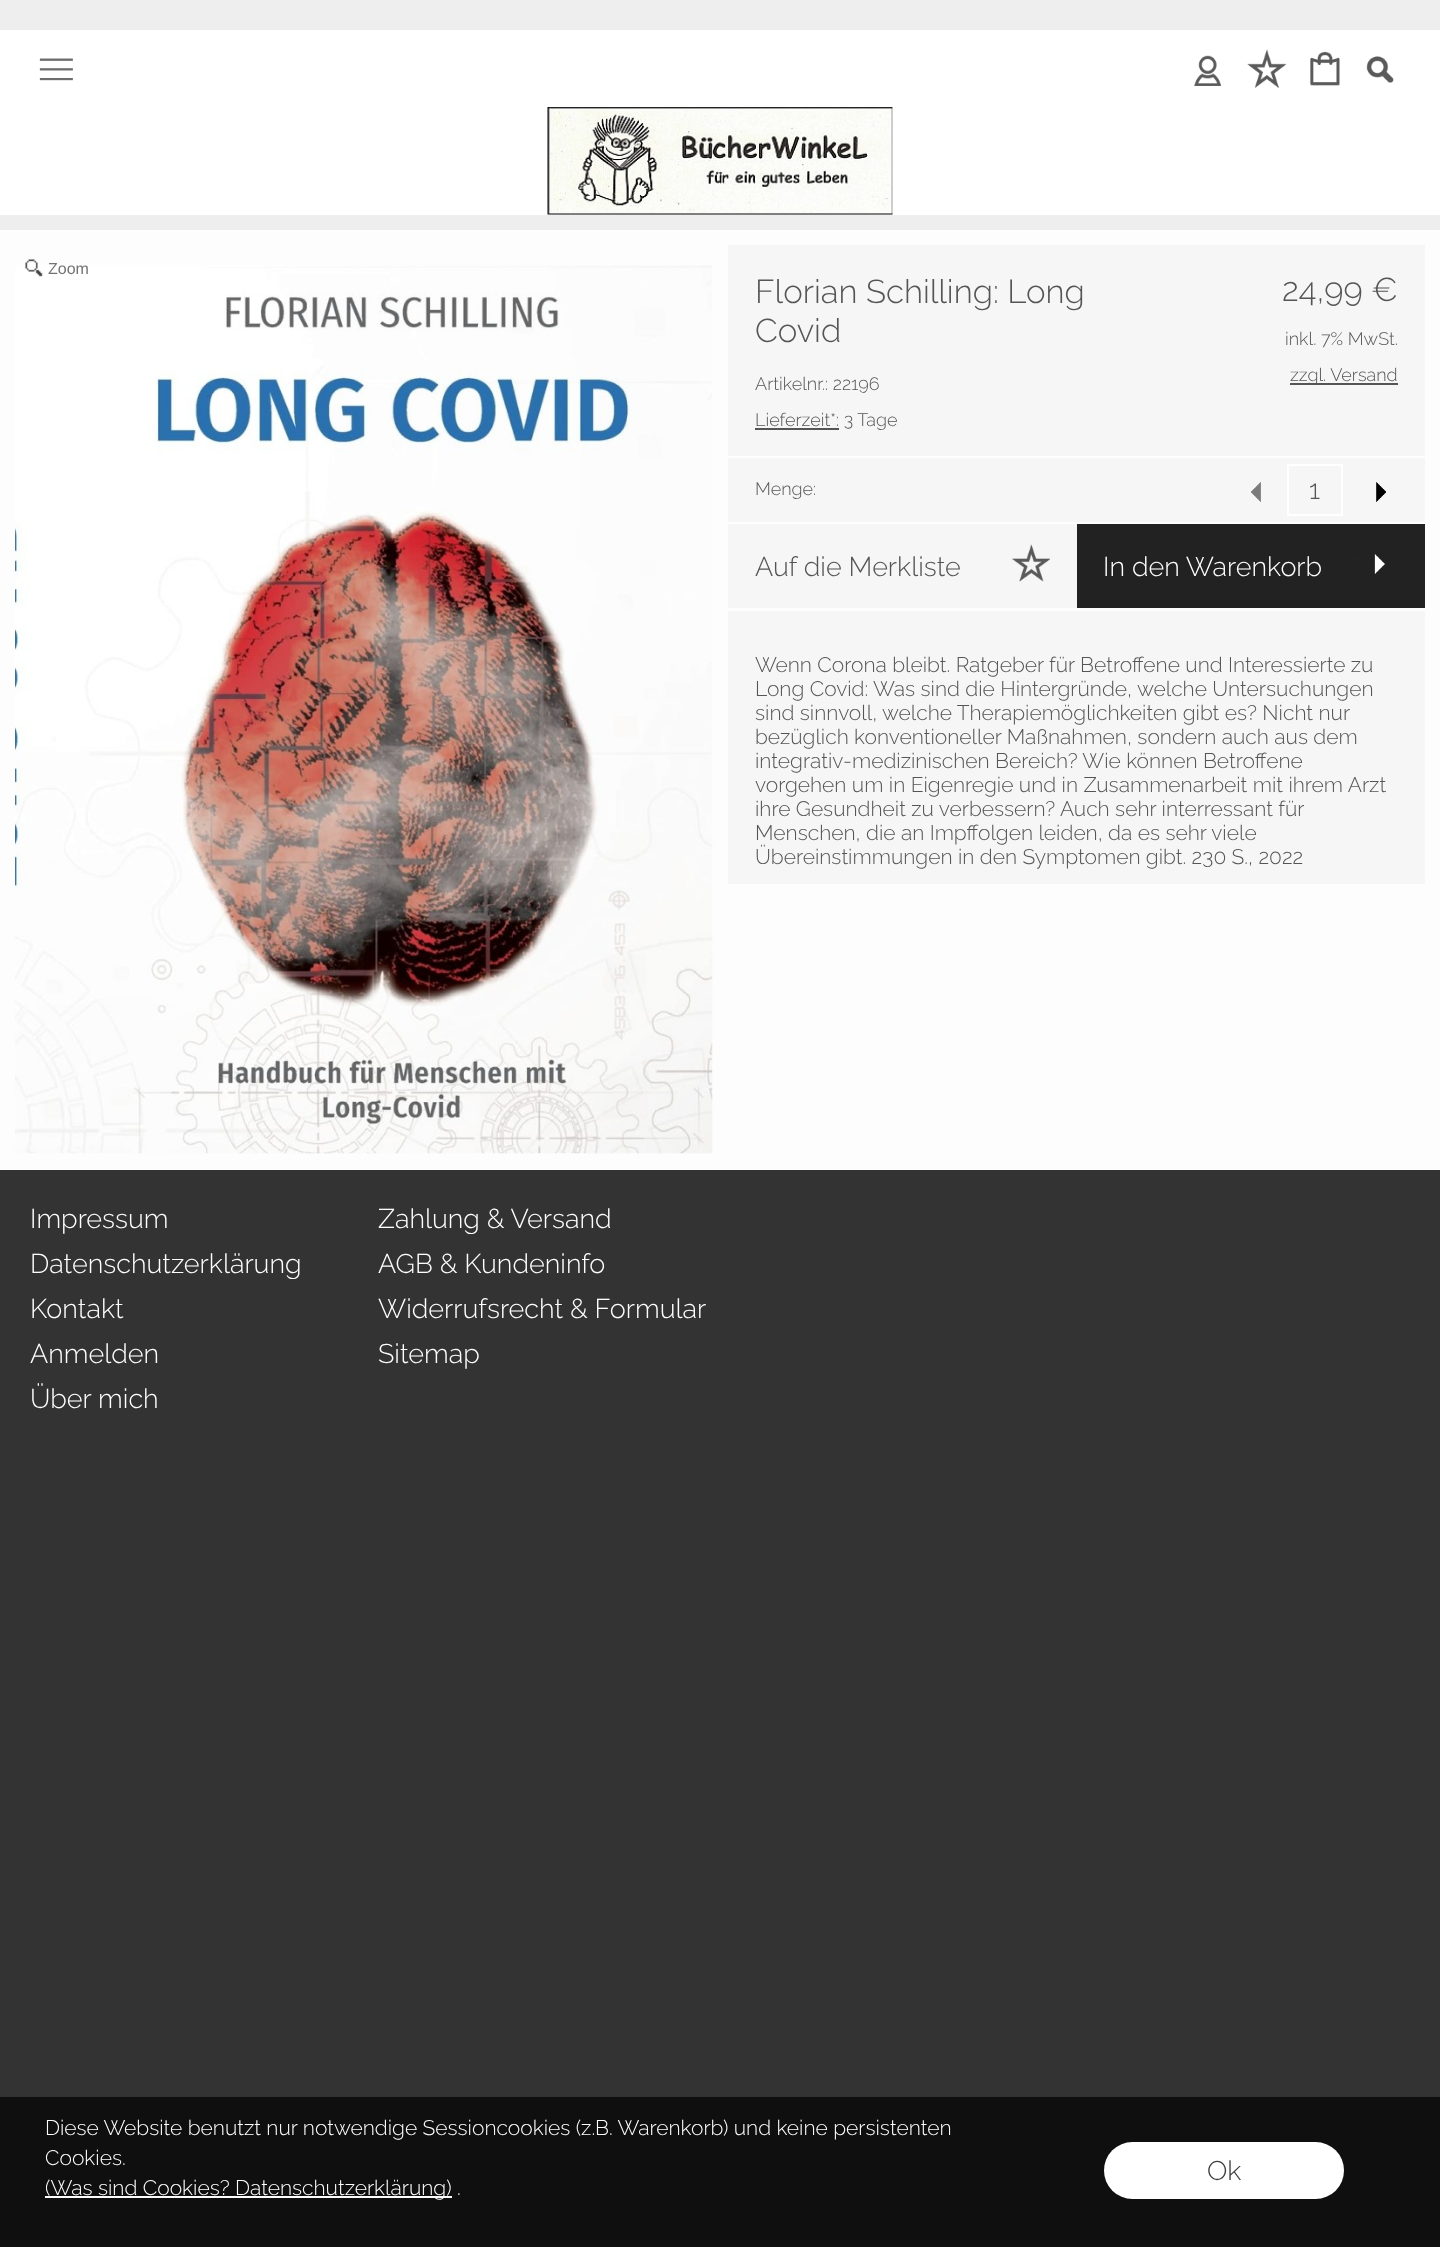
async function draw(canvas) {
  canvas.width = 1440
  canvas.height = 2247
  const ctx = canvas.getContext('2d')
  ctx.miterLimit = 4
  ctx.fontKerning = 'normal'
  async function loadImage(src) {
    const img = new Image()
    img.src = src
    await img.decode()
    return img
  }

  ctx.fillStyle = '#eee'
  ctx.fillRect(0, 0, 1440, 2247)
  ctx.fillStyle = '#fff'
  ctx.fillRect(0, 30, 1440, 185)
  ctx.drawImage(await loadImage('image0.png'), 547, 107, 346, 108)
  ctx.drawImage(await loadImage('image1.png'), 39, 58, 34, 23)
  ctx.drawImage(await loadImage('image2.png'), 1194, 55, 27, 31)
  ctx.drawImage(await loadImage('image3.png'), 1247, 49, 40, 39)
  ctx.drawImage(await loadImage('image4.png'), 1310, 51, 30, 35)
  ctx.drawImage(await loadImage('image5.png'), 1366, 56, 28, 27)
  ctx.fillStyle = '#fdfdfd'
  ctx.fillRect(0, 230, 1440, 940)
  ctx.drawImage(await loadImage('image7.png'), 15, 265, 698, 889)
  ctx.drawImage(await loadImage('image6.png'), 25, 259, 18, 18)
  ctx.font = '16px Liberation Sans'
  ctx.fillStyle = '#737373'
  ctx.fillText('Zoom', 48, 274)
  ctx.fillStyle = '#f6f6f6'
  ctx.fillRect(728, 245, 697, 211)
  ctx.font = '300 33px Raleway'
  ctx.fillStyle = '#555'
  ctx.fillText('Florian Schilling: Long', 755, 303)
  ctx.fillText('Covid', 755, 342)
  ctx.font = '300 18px Raleway'
  ctx.fillText('Artikelnr.: 22196', 755, 390)
  ctx.fillRect(755, 428, 84, 2)
  ctx.fillText('Lieferzeit*: 3 Tage', 755, 426)
  ctx.font = '300 33px Raleway'
  ctx.fillText('24,99 €', 1282, 301)
  ctx.font = '300 18px Raleway'
  ctx.fillText('inkl. 7% MwSt.', 1285, 345)
  ctx.fillRect(1290, 383, 108, 2)
  ctx.fillText('zzgl. Versand', 1290, 381)
  ctx.fillStyle = '#f6f6f6'
  ctx.fillRect(728, 458, 697, 64)
  ctx.fillStyle = '#555'
  ctx.fillText('Menge:', 755, 495)
  ctx.drawImage(await loadImage('image8.png'), 1251, 482, 10, 20)
  ctx.strokeStyle = '#fff'
  ctx.lineWidth = 2
  ctx.strokeRect(1288, 465, 54, 50)
  ctx.font = '300 27px Raleway'
  ctx.fillText('1', 1309, 499)
  ctx.drawImage(await loadImage('image9.png'), 1376, 482, 10, 20)
  ctx.fillStyle = '#f6f6f6'
  ctx.fillRect(728, 524, 349, 84)
  ctx.fillStyle = '#555'
  ctx.fillText('Auf die Merkliste', 755, 576)
  ctx.drawImage(await loadImage('image10.png'), 1012, 544, 38, 38)
  ctx.fillStyle = '#222'
  ctx.fillRect(1077, 524, 348, 84)
  ctx.fillStyle = '#fff'
  ctx.fillText('In den Warenkorb', 1103, 576)
  ctx.drawImage(await loadImage('image11.png'), 1354, 554, 31, 20)
  ctx.fillStyle = '#f6f6f6'
  ctx.fillRect(728, 611, 697, 273)
  ctx.font = '300 21px Raleway'
  ctx.fillStyle = '#555'
  ctx.fillText('Wenn Corona bleibt. Ratgeber für Betroffene und Interessierte zu', 755, 672)
  ctx.fillText('Long Covid: Was sind die Hintergründe, welche Untersuchungen', 755, 696)
  ctx.fillText('sind sinnvoll, welche Therapiemöglichkeiten gibt es? Nicht nur', 755, 720)
  ctx.fillText('bezüglich konventioneller Maßnahmen, sondern auch aus dem', 755, 744)
  ctx.fillText('integrativ-medizinischen Bereich? Wie können Betroffene', 755, 768)
  ctx.fillText('vorgehen um in Eigenregie und in Zusammenarbeit mit ihrem Arzt', 755, 792)
  ctx.fillText('ihre Gesundheit zu verbessern? Auch sehr interressant für', 755, 816)
  ctx.fillText('Menschen, die an Impffolgen leiden, da es sehr viele', 755, 840)
  ctx.fillText('Übereinstimmungen in den Symptomen gibt. 230 S., 2022', 755, 864)
  ctx.fillStyle = '#333'
  ctx.fillRect(0, 1170, 1440, 1077)
  ctx.font = '300 27px Raleway'
  ctx.fillStyle = '#fff'
  ctx.fillText('Impressum', 30, 1228)
  ctx.fillText('Datenschutzerklärung', 30, 1273)
  ctx.fillText('Kontakt', 30, 1318)
  ctx.fillText('Anmelden', 30, 1363)
  ctx.fillText('Über mich', 30, 1408)
  ctx.fillText('Zahlung & Versand', 378, 1228)
  ctx.fillText('AGB & Kundeninfo', 378, 1273)
  ctx.fillText('Widerrufsrecht & Formular', 378, 1318)
  ctx.fillText('Sitemap', 378, 1363)
  ctx.fillStyle = '#000000b3'
  ctx.fillRect(0, 2097, 1440, 150)
  ctx.font = '300 21px Raleway'
  ctx.fillStyle = '#fff'
  ctx.fillText('Diese Website benutzt nur notwendige Sessioncookies (z.B. Warenkorb) und keine persistenten', 45, 2135)
  ctx.fillText('Cookies.', 45, 2165)
  ctx.fillRect(45, 2196, 407, 2)
  ctx.fillText('(Was sind Cookies? Datenschutzerklärung) .', 45, 2195)
  ctx.beginPath()
  ctx.roundRect(1104, 2142, 240, 57, 28.5)
  ctx.fill()
  ctx.font = '300 27px Raleway'
  ctx.fillStyle = '#3e3e3e'
  ctx.fillText('Ok', 1207, 2180)
}

draw(document.querySelector('canvas'))
